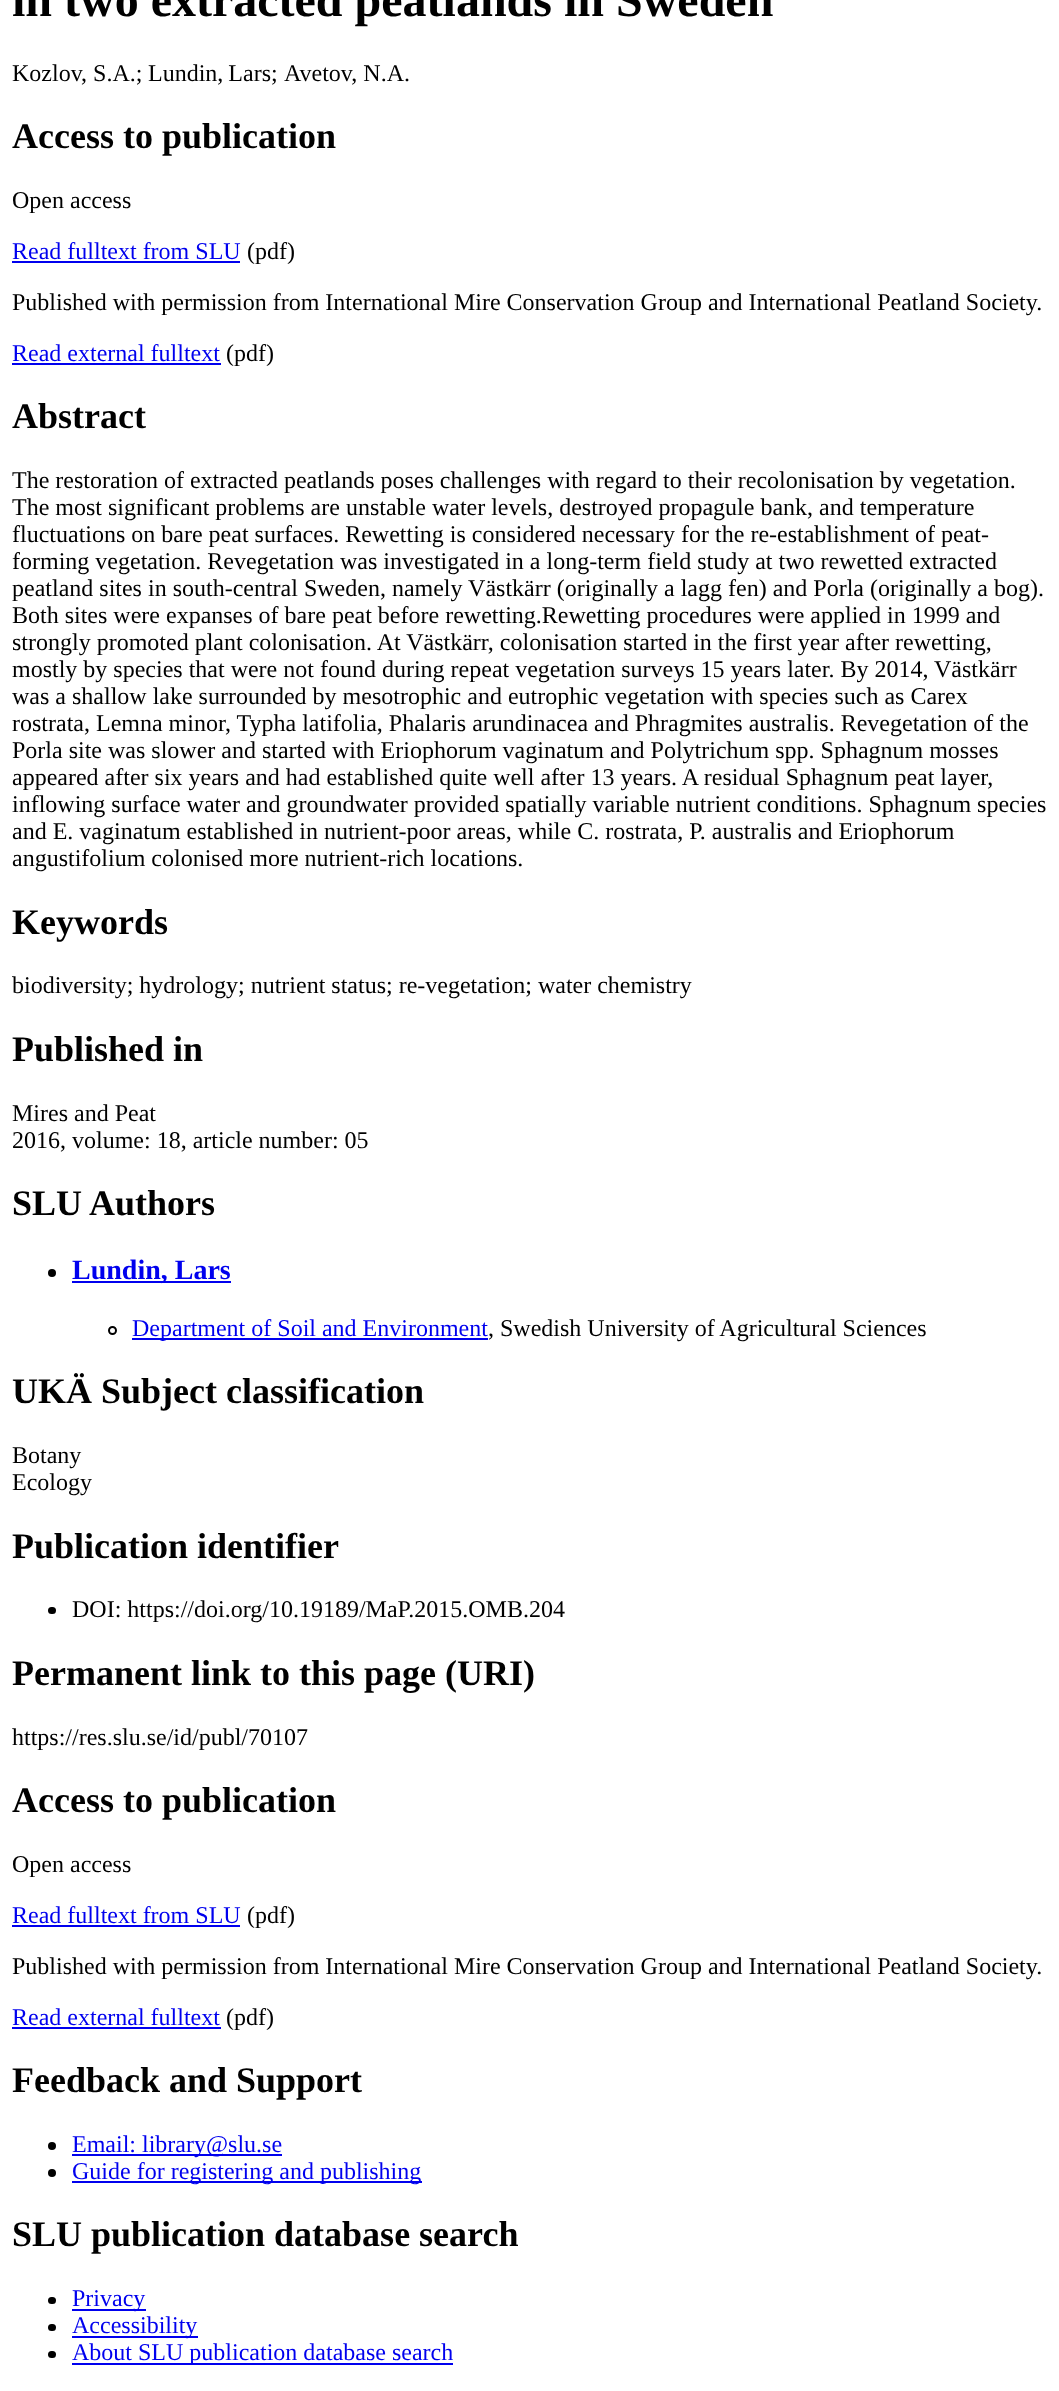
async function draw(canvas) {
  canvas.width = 1059
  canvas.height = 2391
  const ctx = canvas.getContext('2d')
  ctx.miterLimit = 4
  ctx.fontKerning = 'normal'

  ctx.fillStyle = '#fff'
  ctx.fillRect(0, 0, 1059, 2391)
  ctx.font = 'bold 48px Liberation Serif'
  ctx.fillStyle = '#000'
  ctx.fillText('in two extracted peatlands in Sweden', 12, 16)
  ctx.font = '24px Liberation Serif'
  ctx.fillText('Kozlov, S.A.;', 12, 81)
  ctx.wordSpacing = '-1px'
  ctx.fillText('Lundin, Lars;', 148, 81)
  ctx.wordSpacing = '0px'
  ctx.fillText('Avetov, N.A.', 284, 81)
  ctx.font = 'bold 36px Liberation Serif'
  ctx.fillText('Access to publication', 12, 148)
  ctx.font = '24px Liberation Serif'
  ctx.fillText('Open access', 12, 208)
  ctx.fillStyle = '#00e'
  ctx.fillText('Read fulltext from SLU', 12, 259)
  ctx.fillRect(12, 261, 228, 2)
  ctx.fillStyle = '#000'
  ctx.fillText('(pdf)', 247, 259)
  ctx.fillText('Published with permission from International Mire Conservation Group and International Peatland Society.', 12, 310)
  ctx.fillStyle = '#00e'
  ctx.fillText('Read external fulltext', 12, 361)
  ctx.fillRect(12, 363, 209, 2)
  ctx.fillStyle = '#000'
  ctx.fillText('(pdf)', 226, 361)
  ctx.font = 'bold 36px Liberation Serif'
  ctx.fillText('Abstract', 12, 428)
  ctx.font = '24px Liberation Serif'
  ctx.fillText('The restoration of extracted peatlands poses challenges with regard to their recolonisation by vegetation.', 12, 488)
  ctx.fillText('The most significant problems are unstable water levels, destroyed propagule bank, and temperature', 12, 515)
  ctx.fillText('fluctuations on bare peat surfaces. Rewetting is considered necessary for the re-establishment of peat-', 12, 542)
  ctx.fillText('forming vegetation. Revegetation was investigated in a long-term field study at two rewetted extracted', 12, 569)
  ctx.fillText('peatland sites in south-central Sweden, namely Västkärr (originally a lagg fen) and Porla (originally a bog).', 12, 596)
  ctx.fillText('Both sites were expanses of bare peat before rewetting.Rewetting procedures were applied in 1999 and', 12, 623)
  ctx.fillText('strongly promoted plant colonisation. At Västkärr, colonisation started in the first year after rewetting,', 12, 650)
  ctx.fillText('mostly by species that were not found during repeat vegetation surveys 15 years later. By 2014, Västkärr', 12, 677)
  ctx.fillText('was a shallow lake surrounded by mesotrophic and eutrophic vegetation with species such as Carex', 12, 704)
  ctx.fillText('rostrata, Lemna minor, Typha latifolia, Phalaris arundinacea and Phragmites australis. Revegetation of the', 12, 731)
  ctx.fillText('Porla site was slower and started with Eriophorum vaginatum and Polytrichum spp. Sphagnum mosses', 12, 758)
  ctx.fillText('appeared after six years and had established quite well after 13 years. A residual Sphagnum peat layer,', 12, 785)
  ctx.fillText('inflowing surface water and groundwater provided spatially variable nutrient conditions. Sphagnum species', 12, 812)
  ctx.fillText('and E. vaginatum established in nutrient-poor areas, while C. rostrata, P. australis and Eriophorum', 12, 839)
  ctx.fillText('angustifolium colonised more nutrient-rich locations.', 12, 866)
  ctx.font = 'bold 36px Liberation Serif'
  ctx.fillText('Keywords', 12, 934)
  ctx.font = '24px Liberation Serif'
  ctx.fillText('biodiversity; hydrology; nutrient status; re-vegetation; water chemistry', 12, 993)
  ctx.font = 'bold 36px Liberation Serif'
  ctx.fillText('Published in', 12, 1061)
  ctx.font = '24px Liberation Serif'
  ctx.fillText('Mires and Peat', 12, 1121)
  ctx.fillText('2016, volume: 18, article number: 05', 12, 1148)
  ctx.font = 'bold 36px Liberation Serif'
  ctx.fillText('SLU Authors', 12, 1215)
  ctx.beginPath()
  ctx.arc(52, 1273, 4, 0, 2 * Math.PI)
  ctx.fill()
  ctx.fillStyle = '#00e'
  ctx.fillRect(72, 1281, 159, 2)
  ctx.font = 'bold 28px Liberation Serif'
  ctx.fillText('Lundin, Lars', 72, 1279)
  ctx.beginPath()
  ctx.arc(112.5, 1330.5, 3.5, 0, 2 * Math.PI)
  ctx.strokeStyle = '#000'
  ctx.lineWidth = 2
  ctx.stroke()
  ctx.fillRect(132, 1338, 356, 2)
  ctx.font = '24px Liberation Serif'
  ctx.fillText('Department of Soil and Environment', 132, 1336)
  ctx.fillStyle = '#000'
  ctx.fillText(', Swedish University of Agricultural Sciences', 488, 1336)
  ctx.font = 'bold 36px Liberation Serif'
  ctx.fillText('UKÄ Subject classification', 12, 1403)
  ctx.font = '24px Liberation Serif'
  ctx.fillText('Botany', 12, 1463)
  ctx.fillText('Ecology', 12, 1490)
  ctx.font = 'bold 36px Liberation Serif'
  ctx.fillText('Publication identifier', 12, 1558)
  ctx.beginPath()
  ctx.roundRect(48, 1607, 8, 7, 3.5)
  ctx.fill()
  ctx.font = '24px Liberation Serif'
  ctx.fillText('DOI: https://doi.org/10.19189/MaP.2015.OMB.204', 72, 1617)
  ctx.font = 'bold 36px Liberation Serif'
  ctx.fillText('Permanent link to this page (URI)', 12, 1685)
  ctx.font = '24px Liberation Serif'
  ctx.fillText('https://res.slu.se/id/publ/70107', 12, 1745)
  ctx.font = 'bold 36px Liberation Serif'
  ctx.fillText('Access to publication', 12, 1812)
  ctx.font = '24px Liberation Serif'
  ctx.fillText('Open access', 12, 1872)
  ctx.fillStyle = '#00e'
  ctx.fillText('Read fulltext from SLU', 12, 1923)
  ctx.fillRect(12, 1925, 228, 2)
  ctx.fillStyle = '#000'
  ctx.fillText('(pdf)', 247, 1923)
  ctx.fillText('Published with permission from International Mire Conservation Group and International Peatland Society.', 12, 1974)
  ctx.fillStyle = '#00e'
  ctx.fillText('Read external fulltext', 12, 2025)
  ctx.fillRect(12, 2027, 209, 2)
  ctx.fillStyle = '#000'
  ctx.fillText('(pdf)', 226, 2025)
  ctx.font = 'bold 36px Liberation Serif'
  ctx.fillText('Feedback and Support', 12, 2092)
  ctx.beginPath()
  ctx.arc(52, 2146, 4, 0, 2 * Math.PI)
  ctx.fill()
  ctx.fillStyle = '#00e'
  ctx.fillRect(72, 2154, 210, 2)
  ctx.font = '24px Liberation Serif'
  ctx.fillText('Email: library@slu.se', 72, 2152)
  ctx.fillStyle = '#000'
  ctx.beginPath()
  ctx.arc(52, 2173, 4, 0, 2 * Math.PI)
  ctx.fill()
  ctx.fillStyle = '#00e'
  ctx.fillRect(72, 2181, 350, 2)
  ctx.fillText('Guide for registering and publishing', 72, 2179)
  ctx.font = 'bold 36px Liberation Serif'
  ctx.fillStyle = '#000'
  ctx.fillText('SLU publication database search', 12, 2246)
  ctx.beginPath()
  ctx.roundRect(48, 2297, 8, 7, 3.5)
  ctx.fill()
  ctx.fillStyle = '#00e'
  ctx.fillRect(72, 2309, 74, 2)
  ctx.font = '24px Liberation Serif'
  ctx.fillText('Privacy', 72, 2306)
  ctx.fillStyle = '#000'
  ctx.beginPath()
  ctx.roundRect(48, 2324, 8, 7, 3.5)
  ctx.fill()
  ctx.fillStyle = '#00e'
  ctx.fillRect(72, 2336, 126, 2)
  ctx.fillText('Accessibility', 72, 2333)
  ctx.fillStyle = '#000'
  ctx.beginPath()
  ctx.roundRect(48, 2351, 8, 7, 3.5)
  ctx.fill()
  ctx.fillStyle = '#00e'
  ctx.fillRect(72, 2363, 381, 2)
  ctx.fillText('About SLU publication database search', 72, 2360)
}

draw(document.querySelector('canvas'))
